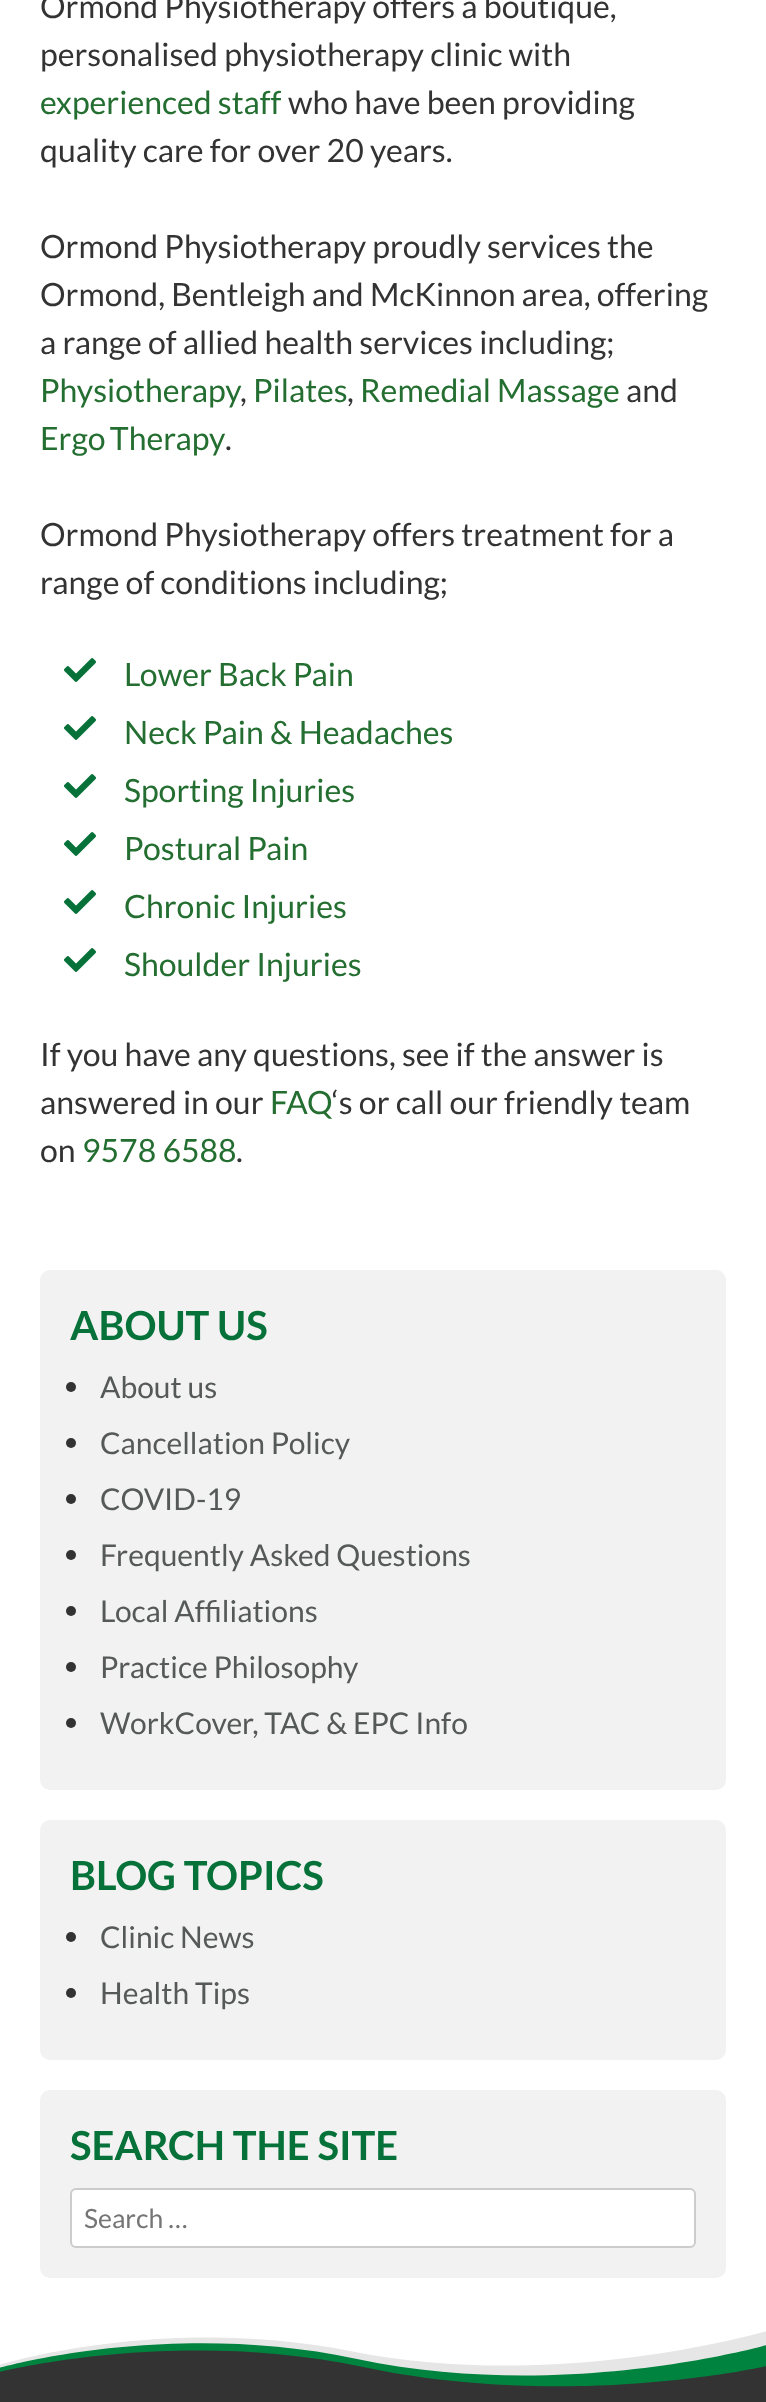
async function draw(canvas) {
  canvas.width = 766
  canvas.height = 2402
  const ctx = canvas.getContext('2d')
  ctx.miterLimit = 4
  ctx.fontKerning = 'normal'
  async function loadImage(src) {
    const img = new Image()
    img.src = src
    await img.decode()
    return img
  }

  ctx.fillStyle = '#fff'
  ctx.fillRect(0, 0, 766, 2402)
  ctx.font = '32px Lato'
  ctx.fillStyle = '#333'
  ctx.fillText('Ormond Physiotherapy offers a boutique,', 40, 18)
  ctx.fillText('personalised physiotherapy clinic with', 40, 66)
  ctx.fillStyle = '#236e30'
  ctx.fillText('experienced staff', 40, 114)
  ctx.fillStyle = '#333'
  ctx.fillText('who have been providing', 288, 114)
  ctx.fillText('quality care for over 20 years.', 40, 162)
  ctx.fillText('Ormond Physiotherapy proudly services the', 40, 258)
  ctx.fillText('Ormond, Bentleigh and McKinnon area, offering', 40, 306)
  ctx.fillText('a range of allied health services including;', 40, 354)
  ctx.fillStyle = '#236e30'
  ctx.fillText('Physiotherapy', 40, 402)
  ctx.fillStyle = '#333'
  ctx.fillText(',', 240, 402)
  ctx.fillStyle = '#236e30'
  ctx.fillText('Pilates', 253, 402)
  ctx.fillStyle = '#333'
  ctx.fillText(',', 347, 402)
  ctx.fillStyle = '#236e30'
  ctx.fillText('Remedial Massage', 360, 402)
  ctx.fillStyle = '#333'
  ctx.fillText('and', 626, 402)
  ctx.wordSpacing = '-2px'
  ctx.fillStyle = '#236e30'
  ctx.fillText('Ergo Therapy', 40, 450)
  ctx.wordSpacing = '0px'
  ctx.fillStyle = '#333'
  ctx.fillText('.', 225, 450)
  ctx.fillText('Ormond Physiotherapy offers treatment for a', 40, 546)
  ctx.fillText('range of conditions including;', 40, 594)
  ctx.drawImage(await loadImage('image0.png'), 64, 658, 32, 24)
  ctx.fillStyle = '#236e30'
  ctx.fillText('Lower Back Pain', 124, 686)
  ctx.drawImage(await loadImage('image0.png'), 64, 716, 32, 24)
  ctx.fillText('Neck Pain & Headaches', 124, 744)
  ctx.drawImage(await loadImage('image0.png'), 64, 774, 32, 24)
  ctx.fillText('Sporting Injuries', 124, 802)
  ctx.drawImage(await loadImage('image0.png'), 64, 832, 32, 24)
  ctx.fillText('Postural Pain', 124, 860)
  ctx.drawImage(await loadImage('image0.png'), 64, 890, 32, 24)
  ctx.fillText('Chronic Injuries', 124, 918)
  ctx.drawImage(await loadImage('image0.png'), 64, 948, 32, 24)
  ctx.fillText('Shoulder Injuries', 124, 976)
  ctx.fillStyle = '#333'
  ctx.fillText('If you have any questions, see if the answer is', 40, 1066)
  ctx.fillText('answered in our', 40, 1114)
  ctx.fillStyle = '#236e30'
  ctx.fillText('FAQ', 270, 1114)
  ctx.fillStyle = '#333'
  ctx.fillText('‘s or call our friendly team', 332, 1114)
  ctx.fillText('on', 40, 1162)
  ctx.fillStyle = '#236e30'
  ctx.fillText('9578 6588', 82, 1162)
  ctx.fillStyle = '#333'
  ctx.fillText('.', 236, 1162)
  ctx.fillStyle = '#f2f2f2'
  ctx.beginPath()
  ctx.roundRect(40, 1270, 686, 520, 10)
  ctx.fill()
  ctx.font = 'bold 40px Lato'
  ctx.fillStyle = '#067139'
  ctx.fillText('ABOUT US', 70, 1340)
  ctx.fillStyle = '#333'
  ctx.beginPath()
  ctx.arc(71, 1387, 5, 0, 2 * Math.PI)
  ctx.fill()
  ctx.font = '30px Lato'
  ctx.fillStyle = '#555957'
  ctx.fillText('About us', 100, 1398)
  ctx.fillStyle = '#333'
  ctx.beginPath()
  ctx.arc(71, 1443, 5, 0, 2 * Math.PI)
  ctx.fill()
  ctx.fillStyle = '#555957'
  ctx.fillText('Cancellation Policy', 100, 1454)
  ctx.fillStyle = '#333'
  ctx.beginPath()
  ctx.arc(71, 1499, 5, 0, 2 * Math.PI)
  ctx.fill()
  ctx.fillStyle = '#555957'
  ctx.fillText('COVID-19', 100, 1510)
  ctx.fillStyle = '#333'
  ctx.beginPath()
  ctx.arc(71, 1555, 5, 0, 2 * Math.PI)
  ctx.fill()
  ctx.fillStyle = '#555957'
  ctx.fillText('Frequently Asked Questions', 100, 1566)
  ctx.fillStyle = '#333'
  ctx.beginPath()
  ctx.arc(71, 1611, 5, 0, 2 * Math.PI)
  ctx.fill()
  ctx.fillStyle = '#555957'
  ctx.fillText('Local Affiliations', 100, 1622)
  ctx.fillStyle = '#333'
  ctx.beginPath()
  ctx.arc(71, 1667, 5, 0, 2 * Math.PI)
  ctx.fill()
  ctx.fillStyle = '#555957'
  ctx.fillText('Practice Philosophy', 100, 1678)
  ctx.fillStyle = '#333'
  ctx.beginPath()
  ctx.arc(71, 1723, 5, 0, 2 * Math.PI)
  ctx.fill()
  ctx.fillStyle = '#555957'
  ctx.fillText('WorkCover, TAC & EPC Info', 100, 1734)
  ctx.fillStyle = '#f2f2f2'
  ctx.beginPath()
  ctx.roundRect(40, 1820, 686, 240, 10)
  ctx.fill()
  ctx.font = 'bold 40px Lato'
  ctx.fillStyle = '#067139'
  ctx.fillText('BLOG TOPICS', 70, 1890)
  ctx.fillStyle = '#333'
  ctx.beginPath()
  ctx.arc(71, 1937, 5, 0, 2 * Math.PI)
  ctx.fill()
  ctx.font = '30px Lato'
  ctx.fillStyle = '#555957'
  ctx.fillText('Clinic News', 100, 1948)
  ctx.fillStyle = '#333'
  ctx.beginPath()
  ctx.arc(71, 1993, 5, 0, 2 * Math.PI)
  ctx.fill()
  ctx.fillStyle = '#555957'
  ctx.fillText('Health Tips', 100, 2004)
  ctx.fillStyle = '#f2f2f2'
  ctx.beginPath()
  ctx.roundRect(40, 2090, 686, 188, 10)
  ctx.fill()
  ctx.font = 'bold 40px Lato'
  ctx.fillStyle = '#067139'
  ctx.fillText('SEARCH THE SITE', 70, 2160)
  ctx.fillStyle = '#fff'
  ctx.beginPath()
  ctx.roundRect(71, 2189, 624, 58, 5)
  ctx.fill()
  ctx.strokeStyle = '#ccc'
  ctx.lineWidth = 2
  ctx.stroke()
  ctx.font = '26.5px Lato'
  ctx.fillStyle = '#757575'
  ctx.fillText('Search …', 84, 2228)
  ctx.save()
  ctx.beginPath()
  ctx.rect(0, 2326, 766, 64)
  ctx.clip()
  ctx.fillStyle = '#e6e6e6'
  ctx.beginPath()
  ctx.moveTo(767, 2331)
  ctx.bezierCurveTo(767, 2331, 558, 2393, 350, 2351)
  ctx.bezierCurveTo(163, 2314, -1, 2365, -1, 2365)
  ctx.lineTo(-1, 2392)
  ctx.lineTo(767, 2392)
  ctx.closePath()
  ctx.fill()
  ctx.fillStyle = '#00833e'
  ctx.beginPath()
  ctx.moveTo(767, 2345)
  ctx.bezierCurveTo(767, 2345, 565, 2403, 357, 2359)
  ctx.bezierCurveTo(170, 2319, -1, 2368, -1, 2368)
  ctx.lineTo(-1, 2392)
  ctx.lineTo(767, 2392)
  ctx.closePath()
  ctx.fill()
  ctx.fillStyle = '#333'
  ctx.beginPath()
  ctx.moveTo(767, 2366)
  ctx.bezierCurveTo(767, 2366, 571, 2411, 363, 2367)
  ctx.bezierCurveTo(176, 2327, -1, 2372, -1, 2372)
  ctx.lineTo(-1, 2392)
  ctx.lineTo(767, 2392)
  ctx.closePath()
  ctx.fill()
  ctx.restore()
  ctx.fillStyle = '#333'
  ctx.fillRect(0, 2390, 766, 12)
}

draw(document.querySelector('canvas'))
